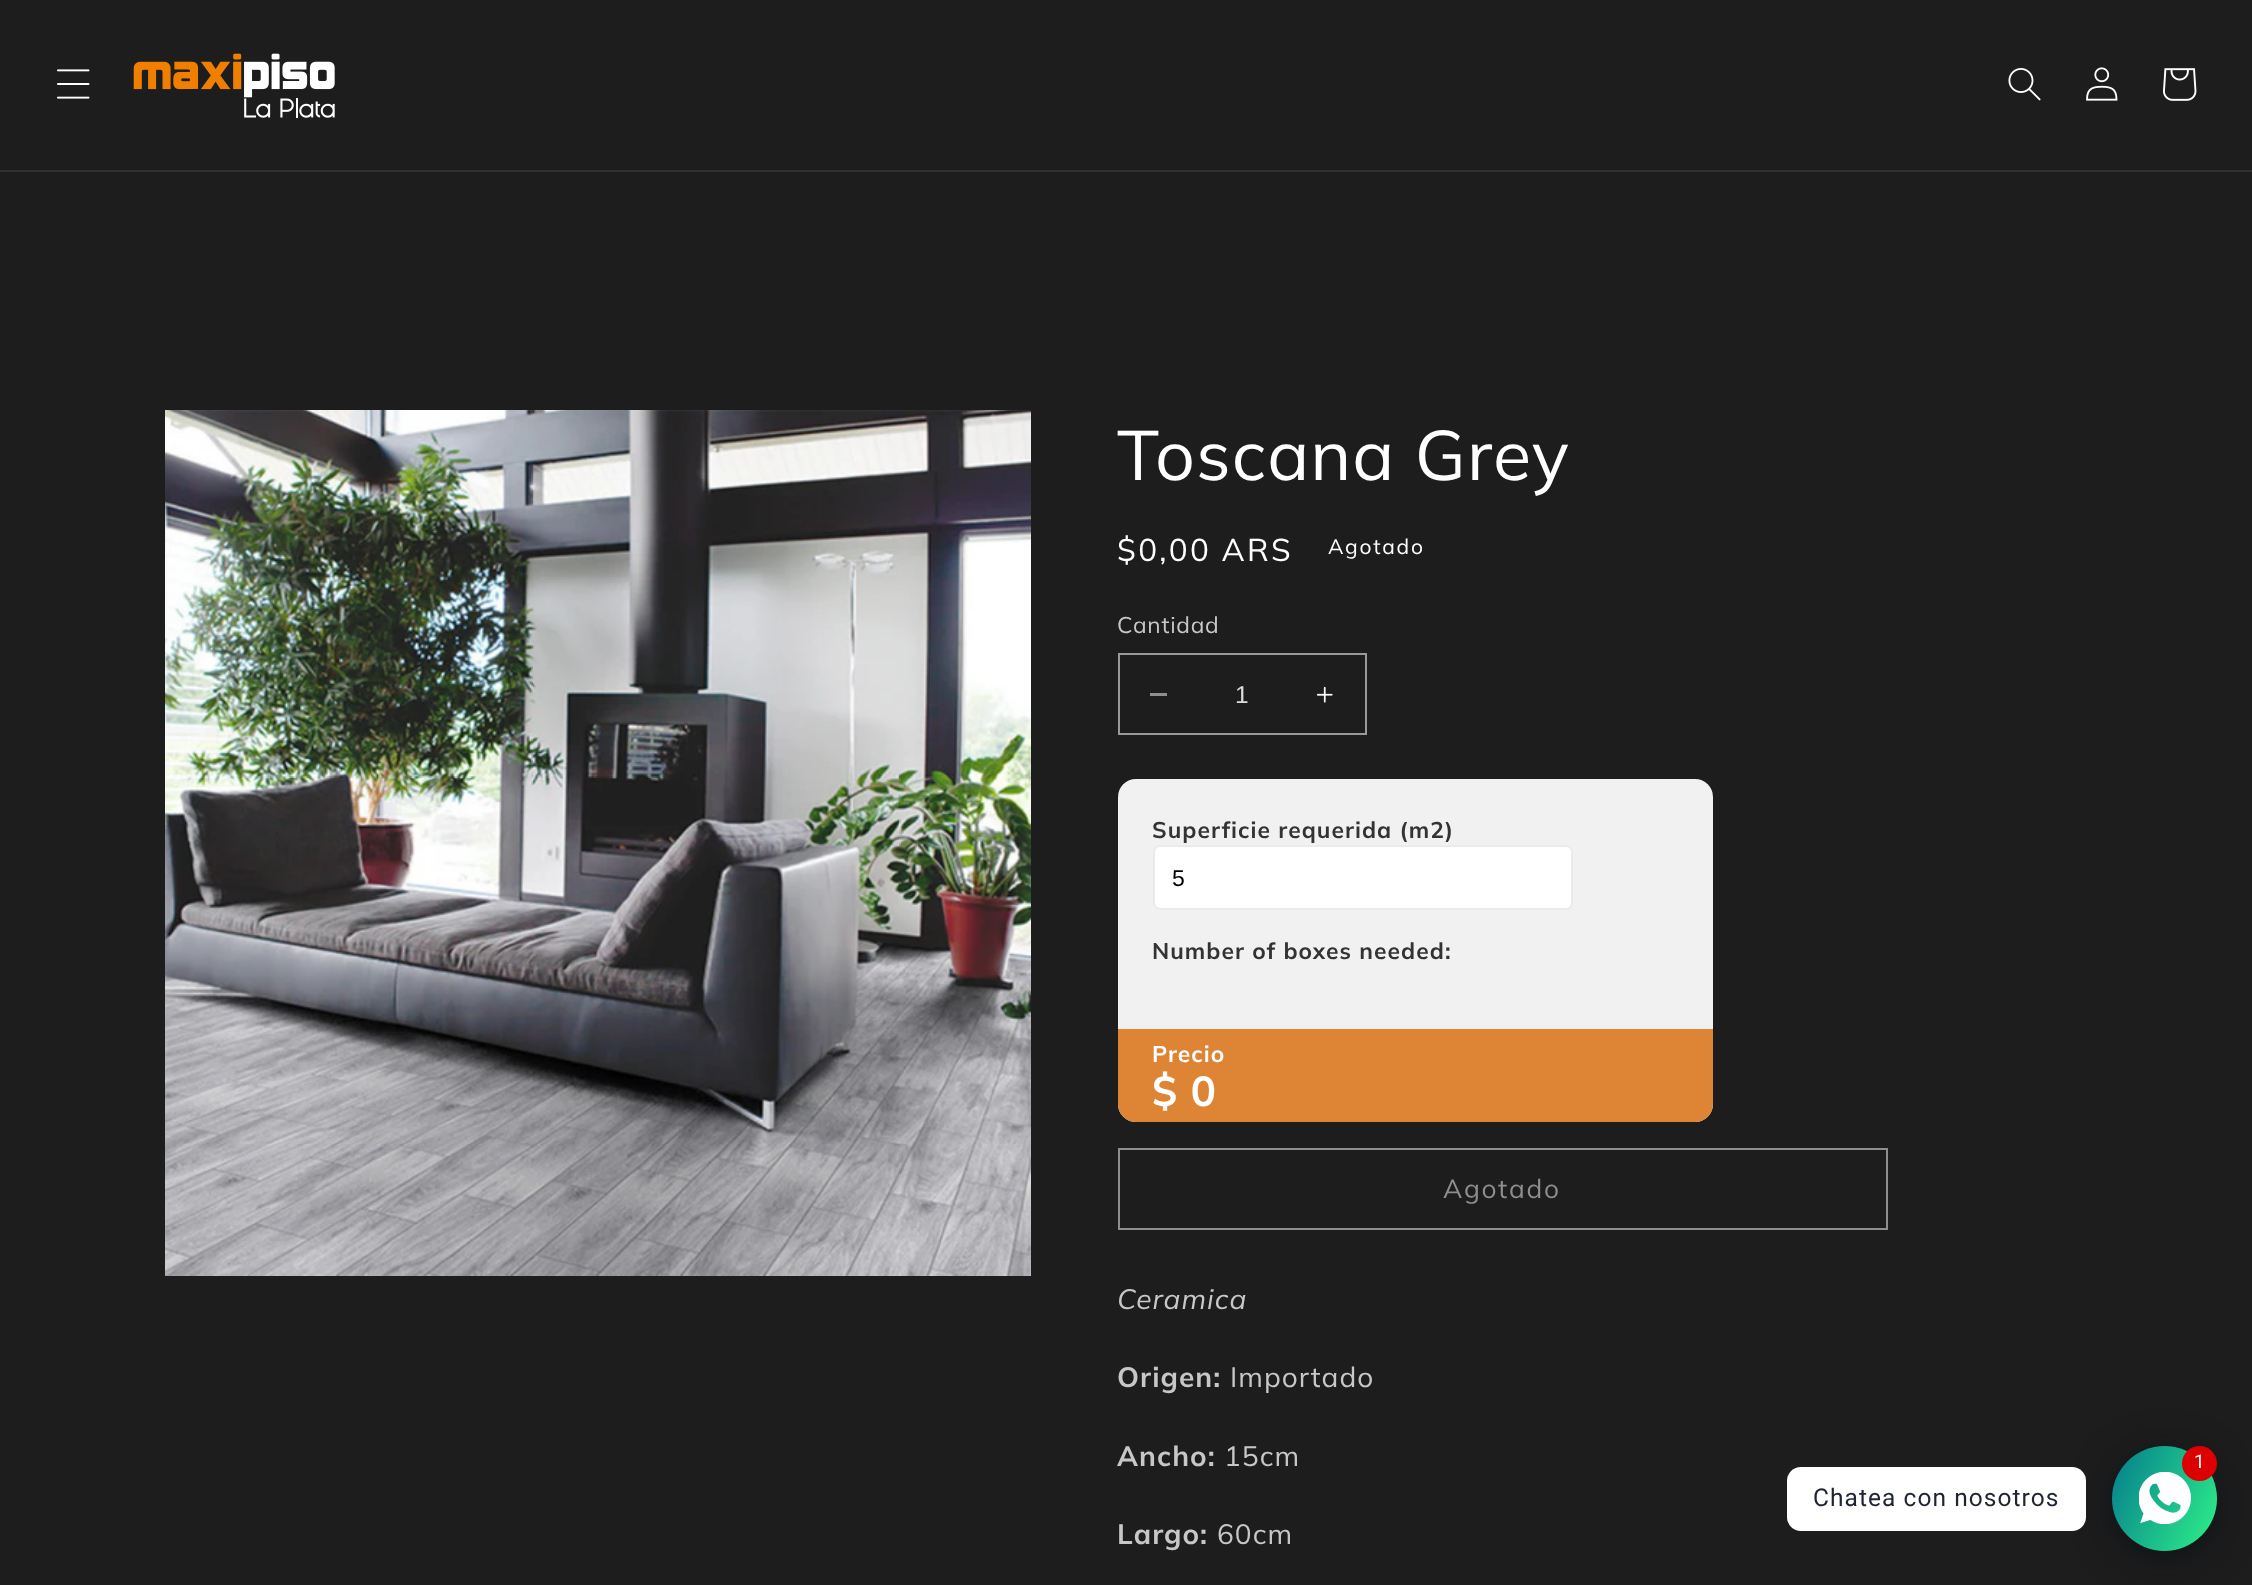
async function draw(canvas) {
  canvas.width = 2252
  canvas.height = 1585
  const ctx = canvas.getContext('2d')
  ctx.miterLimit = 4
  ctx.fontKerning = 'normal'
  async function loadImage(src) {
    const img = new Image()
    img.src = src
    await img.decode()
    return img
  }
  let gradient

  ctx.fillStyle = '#1d1d1d'
  ctx.fillRect(0, 0, 2252, 1585)
  ctx.fillStyle = '#2f2f2f'
  ctx.fillRect(0, 170, 2252, 2)
  ctx.drawImage(await loadImage('image0.png'), 57, 69, 33, 30)
  ctx.drawImage(await loadImage('image1.png'), 133, 53, 202, 65)
  ctx.drawImage(await loadImage('image2.png'), 2008, 68, 33, 33)
  ctx.drawImage(await loadImage('image3.png'), 2086, 67, 32, 34)
  ctx.drawImage(await loadImage('image4.png'), 2163, 68, 34, 33)
  ctx.drawImage(await loadImage('image5.png'), 165, 410, 866, 866)
  ctx.letterSpacing = '1.05px'
  ctx.font = '70px Muli'
  ctx.fillStyle = '#fff'
  ctx.fillText('Toscana Grey', 1117, 480)
  ctx.letterSpacing = '2.25px'
  ctx.font = '31.5px Muli'
  ctx.fillText('$0,00 ARS', 1117, 561)
  ctx.letterSpacing = '1.75px'
  ctx.font = '21px Muli'
  ctx.fillText('Agotado', 1328, 554)
  ctx.letterSpacing = '0.75px'
  ctx.font = '22.75px Muli'
  ctx.fillStyle = '#c7c7c7'
  ctx.fillText('Cantidad', 1117, 633)
  ctx.fillStyle = '#8e8e8e'
  ctx.fillRect(1150, 693, 17, 3)
  ctx.drawImage(await loadImage('image6.png'), 1316, 686, 17, 17)
  ctx.strokeStyle = '#999'
  ctx.lineWidth = 2
  ctx.strokeRect(1119, 654, 247, 80)
  ctx.letterSpacing = '0px'
  ctx.font = '24.5px Liberation Sans'
  ctx.fillStyle = '#ddd'
  ctx.fillText('1', 1235, 703)
  ctx.fillStyle = '#f1f1f1'
  ctx.beginPath()
  ctx.roundRect(1118, 779, 595, 343, 18)
  ctx.fill()
  ctx.letterSpacing = '1.05px'
  ctx.font = 'bold 22.75px Muli'
  ctx.fillStyle = '#333'
  ctx.fillText('Superficie requerida (m2)', 1152, 838)
  ctx.fillStyle = '#fff'
  ctx.beginPath()
  ctx.roundRect(1154, 846, 418, 63, 6)
  ctx.fill()
  ctx.strokeStyle = '#ebebeb'
  ctx.stroke()
  ctx.letterSpacing = '0px'
  ctx.font = '23px Liberation Sans'
  ctx.fillStyle = '#000'
  ctx.fillText('5', 1172, 886)
  ctx.letterSpacing = '1.05px'
  ctx.font = 'bold 22.75px Muli'
  ctx.fillStyle = '#333'
  ctx.fillText('Number of boxes needed:', 1152, 959)
  ctx.fillStyle = '#dd8435'
  ctx.beginPath()
  ctx.roundRect(1118, 1029, 595, 93, [0, 0, 18, 18])
  ctx.fill()
  ctx.fillStyle = '#fff'
  ctx.fillText('Precio', 1152, 1062)
  ctx.font = 'bold 42px Muli'
  ctx.fillText('$ 0', 1152, 1106)
  ctx.strokeStyle = '#8e8e8e'
  ctx.strokeRect(1119, 1149, 768, 80)
  ctx.letterSpacing = '1.75px'
  ctx.font = '26.25px Muli'
  ctx.fillStyle = '#8e8e8e'
  ctx.fillText('Agotado', 1443, 1198)
  ctx.letterSpacing = '1.05px'
  ctx.font = 'italic 28px Muli'
  ctx.fillStyle = '#c7c7c7'
  ctx.fillText('Ceramica', 1117, 1309)
  ctx.font = 'bold 28px Muli'
  ctx.fillText('Origen:', 1117, 1387)
  ctx.font = '28px Muli'
  ctx.fillText('Importado', 1230, 1387)
  ctx.font = 'bold 28px Muli'
  ctx.fillText('Ancho:', 1117, 1466)
  ctx.font = '28px Muli'
  ctx.fillText('15cm', 1224, 1466)
  ctx.font = 'bold 28px Muli'
  ctx.fillText('Largo:', 1117, 1544)
  ctx.font = '28px Muli'
  ctx.fillText('60cm', 1217, 1544)
  ctx.fillStyle = '#02061080'
  ctx.filter = 'blur(21px)'
  ctx.beginPath()
  ctx.roundRect(2112, 1453, 105, 105, 52.5)
  ctx.fill()
  ctx.filter = 'none'
  gradient = ctx.createLinearGradient(2102, 1469, 2228, 1527)
  gradient.addColorStop(0, '#047c8d')
  gradient.addColorStop(1, '#2ff289')
  ctx.fillStyle = gradient
  ctx.beginPath()
  ctx.arc(2164.5, 1498.5, 52.5, 0, 2 * Math.PI)
  ctx.fill()
  ctx.drawImage(await loadImage('image7.png'), 2139, 1472, 52, 52)
  ctx.fillStyle = '#d00'
  ctx.beginPath()
  ctx.arc(2199.5, 1463.5, 17.5, 0, 2 * Math.PI)
  ctx.fill()
  ctx.font = '19px Roboto'
  ctx.fillStyle = '#fff'
  ctx.fillText('1', 2194, 1468)
  ctx.beginPath()
  ctx.roundRect(1787, 1467, 299, 64, 14)
  ctx.fill()
  ctx.font = '24.5px Roboto'
  ctx.fillStyle = '#1e2433'
  ctx.fillText('Chatea con nosotros', 1813, 1506)
}

draw(document.querySelector('canvas'))
